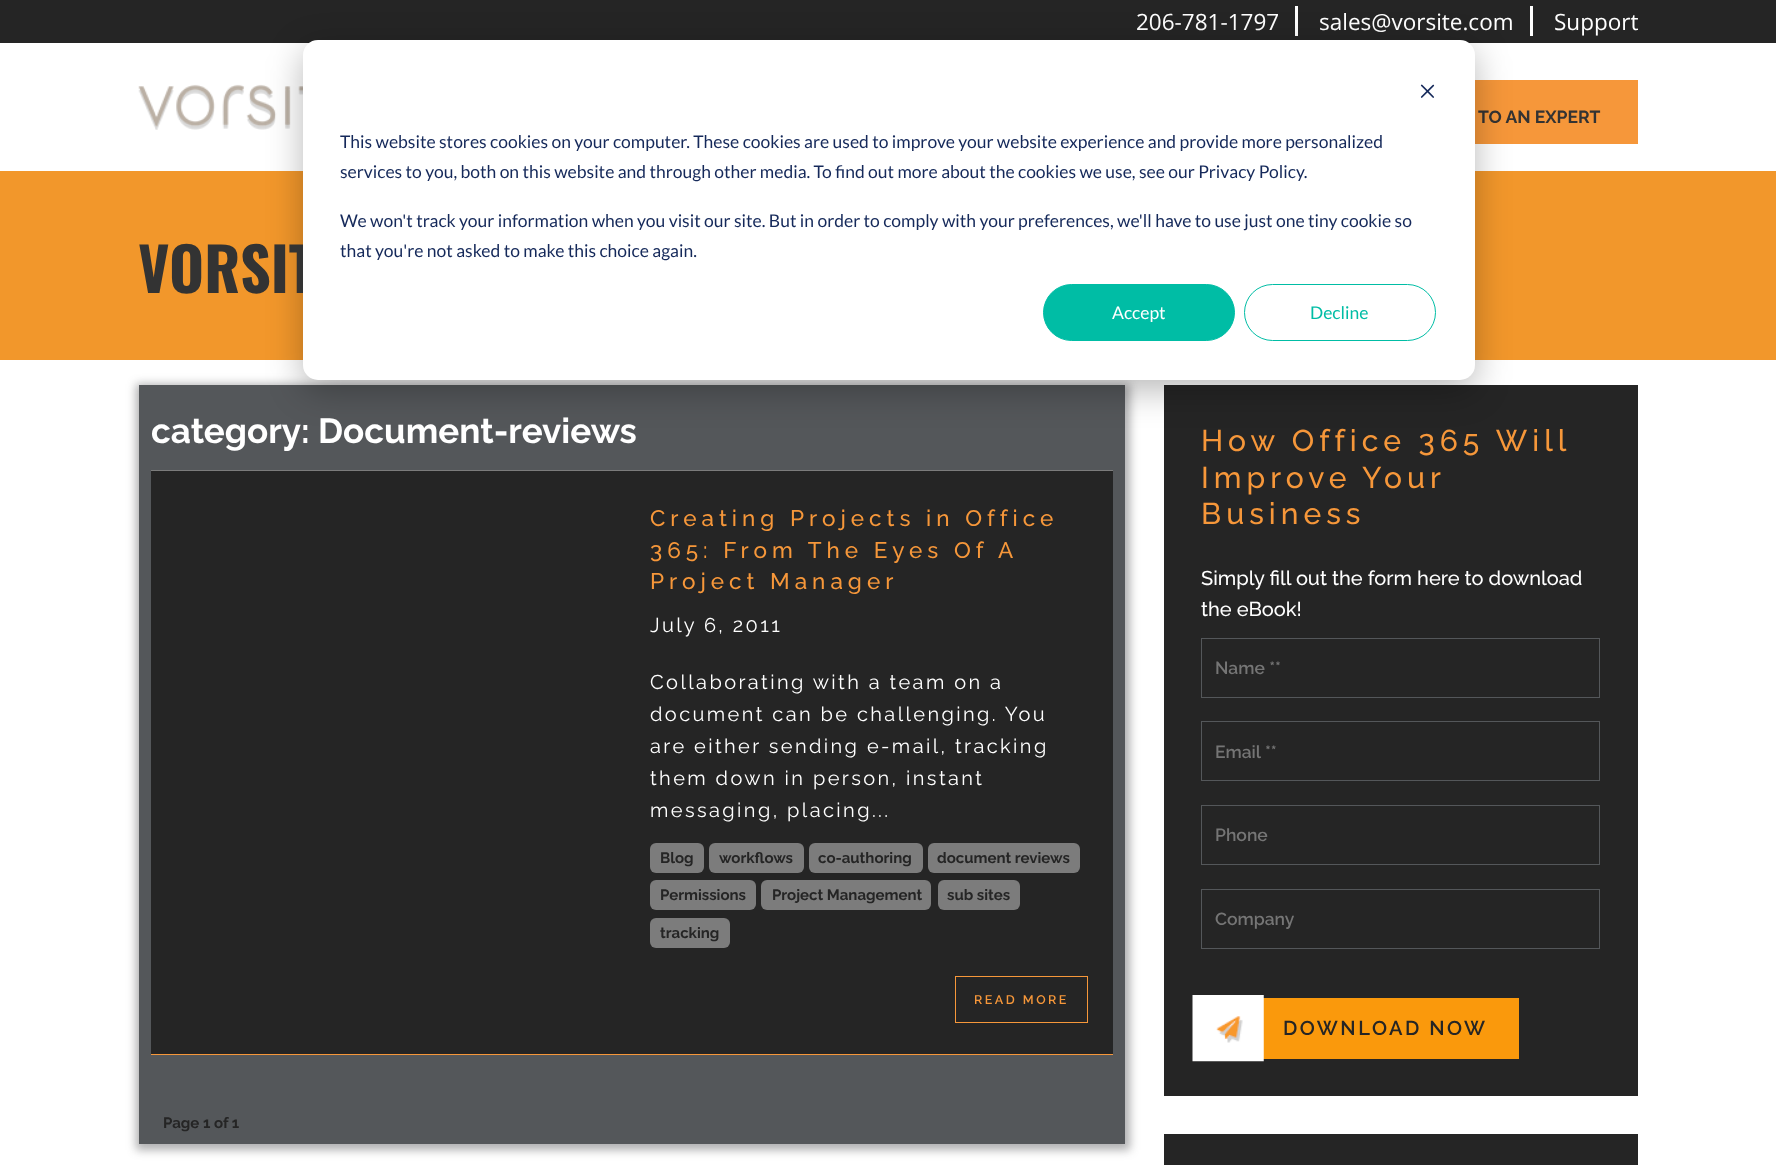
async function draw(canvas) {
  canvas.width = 1776
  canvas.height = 1165
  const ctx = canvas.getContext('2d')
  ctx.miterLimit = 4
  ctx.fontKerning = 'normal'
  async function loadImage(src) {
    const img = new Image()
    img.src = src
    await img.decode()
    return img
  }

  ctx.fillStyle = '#fff'
  ctx.fillRect(0, 0, 1776, 1165)
  ctx.fillStyle = '#252525'
  ctx.fillRect(0, 0, 1776, 43)
  ctx.font = '22.5px Open Sans'
  ctx.fillStyle = '#fff'
  ctx.fillText('206-781-1797', 1136, 30)
  ctx.fillRect(1295, 6, 3, 30)
  ctx.fillText('sales@vorsite.com', 1319, 30)
  ctx.fillRect(1530, 6, 3, 30)
  ctx.fillText('Support', 1554, 30)
  ctx.drawImage(await loadImage('image0.png'), 138, 84, 165, 46)
  ctx.fillStyle = '#f6973a'
  ctx.fillRect(1475, 80, 163, 64)
  ctx.font = 'bold 17.5px Raleway'
  ctx.fillStyle = '#333'
  ctx.fillText('TO AN EXPERT', 1478, 123)
  ctx.fillStyle = '#f2972b'
  ctx.fillRect(0, 171, 1776, 189)
  ctx.fillStyle = '#37383966'
  ctx.filter = 'blur(5px)'
  ctx.beginPath()
  ctx.rect(136, 384, 994, 766)
  ctx.fill()
  ctx.filter = 'none'
  ctx.fillStyle = '#54575a'
  ctx.fillRect(139, 385, 986, 759)
  ctx.fillStyle = '#252525'
  ctx.fillRect(1164, 385, 474, 711)
  ctx.fillStyle = '#00000047'
  ctx.filter = 'blur(17.5px)'
  ctx.beginPath()
  ctx.roundRect(303, 50, 1172, 340, 15)
  ctx.fill()
  ctx.filter = 'none'
  ctx.font = 'bold 60px Oswald'
  ctx.fillStyle = '#333'
  ctx.fillText('VORSIT', 138, 293)
  ctx.fillStyle = '#fff'
  ctx.beginPath()
  ctx.roundRect(303, 40, 1172, 340, 15)
  ctx.fill()
  ctx.drawImage(await loadImage('image1.png'), 1420, 84, 15, 14)
  ctx.font = '17.5px Lato'
  ctx.fillStyle = '#15295a'
  ctx.fillText('This website stores cookies on your computer. These cookies are used to improve your website experience and provide more personalized', 340, 148)
  ctx.fillText('services to you, both on this website and through other media. To find out more about the cookies we use, see our Privacy Policy.', 340, 178)
  ctx.fillText('We won\'t track your information when you visit our site. But in order to comply with your preferences, we\'ll have to use just one tiny cookie so', 340, 227)
  ctx.fillText('that you\'re not asked to make this choice again.', 340, 257)
  ctx.fillStyle = '#00bda5'
  ctx.beginPath()
  ctx.roundRect(1043.5, 284.5, 191, 56, 28)
  ctx.fill()
  ctx.strokeStyle = '#00bda5'
  ctx.stroke()
  ctx.fillStyle = '#fff'
  ctx.fillText('Accept', 1112, 319)
  ctx.beginPath()
  ctx.roundRect(1244.5, 284.5, 191, 56, 28)
  ctx.stroke()
  ctx.fillStyle = '#00bda5'
  ctx.fillText('Decline', 1310, 319)
  ctx.font = 'bold 35px Raleway'
  ctx.fillStyle = '#fff'
  ctx.fillText('category: Document-reviews', 151, 443)
  ctx.fillStyle = '#252525'
  ctx.fillRect(151, 471, 962, 583)
  ctx.fillStyle = '#7c7c7c'
  ctx.fillRect(151, 470, 962, 1)
  ctx.fillStyle = '#f6973a'
  ctx.fillRect(151, 1054, 962, 1)
  ctx.letterSpacing = '5px'
  ctx.font = '500 22.5px Raleway'
  ctx.fillText('Creating Projects in Office', 650, 526)
  ctx.fillText('365: From The Eyes Of A', 650, 558)
  ctx.fillText('Project Manager', 650, 589)
  ctx.letterSpacing = '2.4px'
  ctx.font = '20px Raleway'
  ctx.fillStyle = '#fff'
  ctx.fillText('July 6, 2011', 650, 632)
  ctx.fillText('Collaborating with a team on a', 650, 689)
  ctx.fillText('document can be challenging. You', 650, 721)
  ctx.fillText('are either sending e-mail, tracking', 650, 753)
  ctx.fillText('them down in person, instant', 650, 785)
  ctx.fillText('messaging, placing...', 650, 817)
  ctx.fillStyle = '#7c7c7c'
  ctx.beginPath()
  ctx.roundRect(650, 843, 54, 30, 6)
  ctx.fill()
  ctx.letterSpacing = '0px'
  ctx.font = 'bold 15px Raleway'
  ctx.fillStyle = '#252525'
  ctx.fillText('Blog', 660, 863)
  ctx.fillStyle = '#7c7c7c'
  ctx.beginPath()
  ctx.roundRect(709, 843, 95, 30, 6)
  ctx.fill()
  ctx.fillStyle = '#252525'
  ctx.fillText('workflows', 719, 863)
  ctx.fillStyle = '#7c7c7c'
  ctx.beginPath()
  ctx.roundRect(809, 843, 114, 30, 6)
  ctx.fill()
  ctx.fillStyle = '#252525'
  ctx.fillText('co-authoring', 818, 863)
  ctx.fillStyle = '#7c7c7c'
  ctx.beginPath()
  ctx.roundRect(928, 843, 152, 30, 6)
  ctx.fill()
  ctx.fillStyle = '#252525'
  ctx.fillText('document reviews', 937, 863)
  ctx.fillStyle = '#7c7c7c'
  ctx.beginPath()
  ctx.roundRect(650, 880, 106, 30, 6)
  ctx.fill()
  ctx.fillStyle = '#252525'
  ctx.fillText('Permissions', 660, 900)
  ctx.fillStyle = '#7c7c7c'
  ctx.beginPath()
  ctx.roundRect(761, 880, 170, 30, 6)
  ctx.fill()
  ctx.fillStyle = '#252525'
  ctx.fillText('Project Management', 772, 900)
  ctx.fillStyle = '#7c7c7c'
  ctx.beginPath()
  ctx.roundRect(938, 880, 82, 30, 6)
  ctx.fill()
  ctx.fillStyle = '#252525'
  ctx.fillText('sub sites', 947, 900)
  ctx.fillStyle = '#7c7c7c'
  ctx.beginPath()
  ctx.roundRect(650, 918, 80, 30, 6)
  ctx.fill()
  ctx.fillStyle = '#252525'
  ctx.fillText('tracking', 660, 938)
  ctx.strokeStyle = '#f6973a'
  ctx.strokeRect(955.5, 976.5, 132, 46)
  ctx.letterSpacing = '2.5px'
  ctx.font = '600 12.5px Raleway'
  ctx.fillStyle = '#f6973a'
  ctx.fillText('READ MORE', 974, 1004)
  ctx.letterSpacing = '0px'
  ctx.font = 'bold 15px Raleway'
  ctx.fillStyle = '#252525'
  ctx.fillText('Page 1 of 1', 163, 1128)
  ctx.letterSpacing = '5px'
  ctx.font = '500 30px Raleway'
  ctx.fillStyle = '#f6973a'
  ctx.fillText('How Office 365 Will', 1201, 451)
  ctx.wordSpacing = '-1px'
  ctx.fillText('Improve Your', 1201, 488)
  ctx.wordSpacing = '0px'
  ctx.fillText('Business', 1201, 524)
  ctx.letterSpacing = '0px'
  ctx.font = '500 20px Raleway'
  ctx.fillStyle = '#fff'
  ctx.fillText('Simply fill out the form here to download', 1201, 585)
  ctx.fillText('the eBook!', 1201, 616)
  ctx.strokeStyle = '#54575a'
  ctx.strokeRect(1201.5, 638.5, 398, 59)
  ctx.font = '600 17.5px Raleway'
  ctx.fillStyle = '#757575'
  ctx.fillText('Name **', 1215, 674)
  ctx.strokeRect(1201.5, 721.5, 398, 59)
  ctx.fillText('Email **', 1215, 758)
  ctx.strokeRect(1201.5, 805.5, 398, 59)
  ctx.fillText('Phone', 1215, 841)
  ctx.strokeRect(1201.5, 889.5, 398, 59)
  ctx.fillText('Company', 1215, 925)
  ctx.fillStyle = '#fa990c'
  ctx.fillRect(1263, 998, 256, 61)
  ctx.drawImage(await loadImage('image2.png'), 1192, 995, 72, 67)
  ctx.letterSpacing = '2.5px'
  ctx.font = '600 20px Raleway'
  ctx.fillStyle = '#252525'
  ctx.fillText('DOWNLOAD NOW', 1283, 1035)
  ctx.fillRect(1164, 1134, 474, 31)
}

draw(document.querySelector('canvas'))
